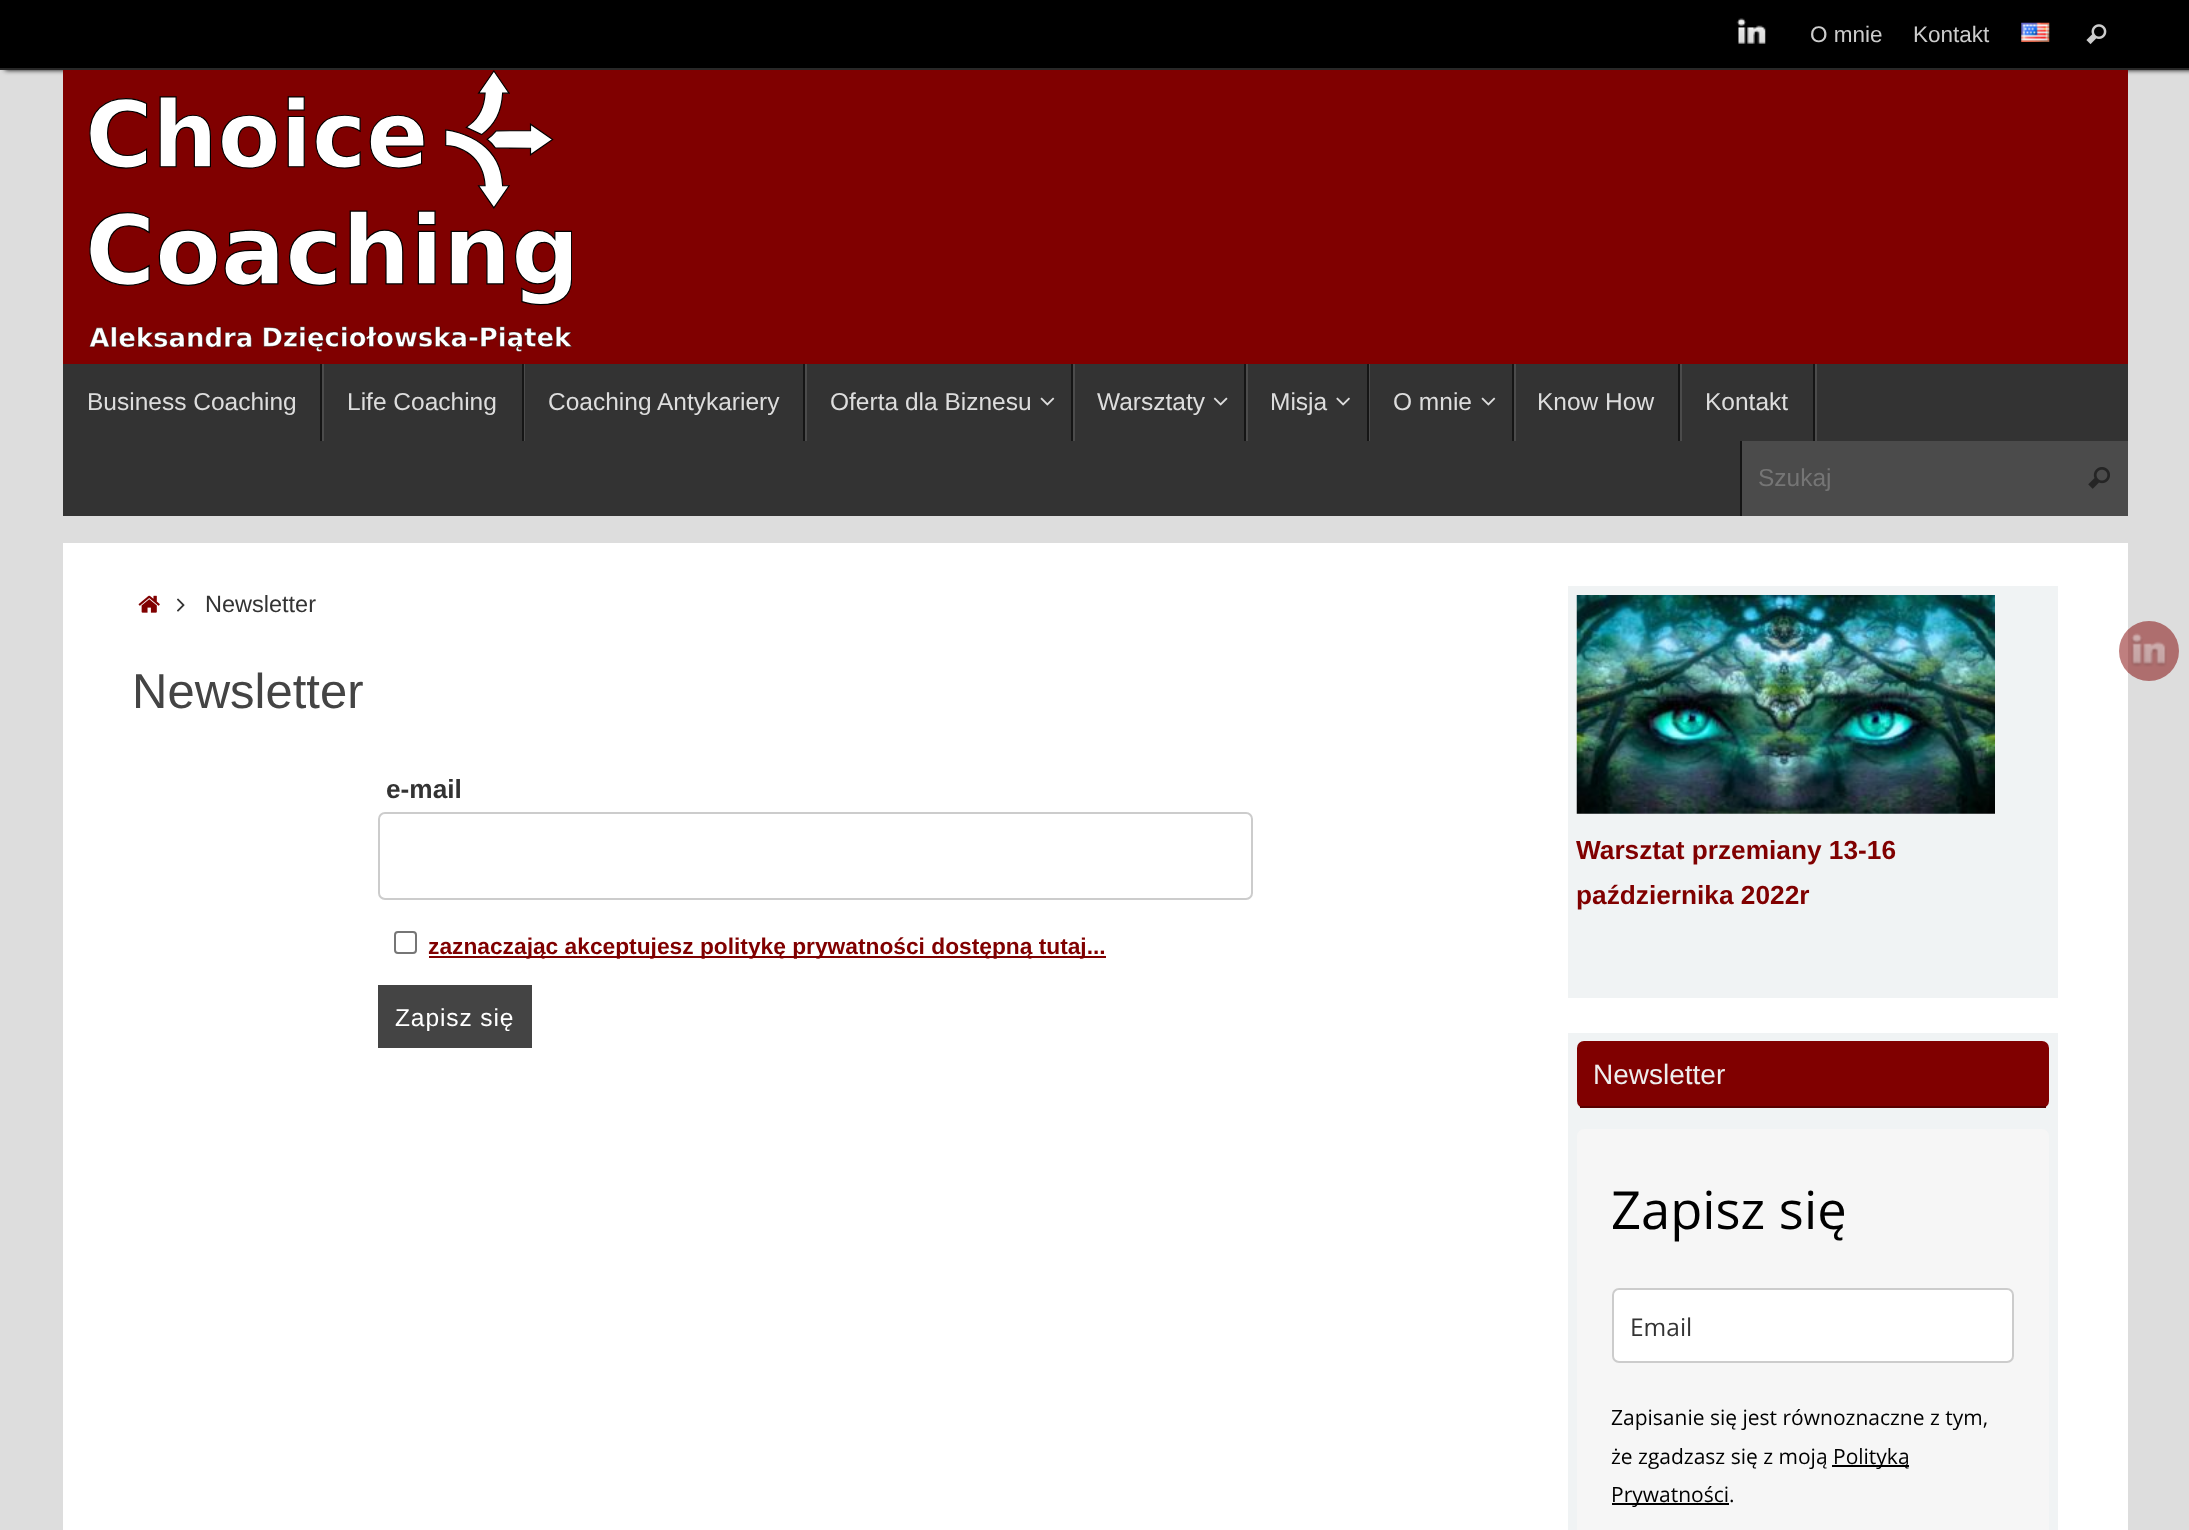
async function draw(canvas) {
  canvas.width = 2189
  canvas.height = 1530
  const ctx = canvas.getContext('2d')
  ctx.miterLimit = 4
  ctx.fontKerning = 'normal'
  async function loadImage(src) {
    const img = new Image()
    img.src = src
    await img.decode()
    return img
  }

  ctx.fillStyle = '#ddd'
  ctx.fillRect(0, 0, 2189, 1530)
  ctx.fillStyle = '#000'
  ctx.filter = 'blur(2.5px)'
  ctx.beginPath()
  ctx.rect(5, 0, 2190, 70)
  ctx.fill()
  ctx.filter = 'none'
  ctx.fillRect(0, 0, 2189, 68)
  ctx.fillStyle = '#282828'
  ctx.fillRect(0, 68, 2189, 2)
  ctx.drawImage(await loadImage('image0.png'), 1736, 18, 30, 26)
  ctx.font = '22.5px Liberation Sans'
  ctx.fillStyle = '#ccc'
  ctx.fillText('O mnie', 1810, 42)
  ctx.fillText('Kontakt', 1913, 42)
  ctx.drawImage(await loadImage('image1.png'), 2021, 22, 29, 20)
  ctx.drawImage(await loadImage('image2.png'), 2086, 24, 21, 21)
  ctx.fillStyle = '#800000'
  ctx.fillRect(63, 70, 2065, 294)
  ctx.drawImage(await loadImage('image3.png'), 89, 70, 483, 282)
  ctx.fillStyle = '#333'
  ctx.fillRect(63, 364, 2065, 152)
  ctx.fillStyle = '#4b4b4b'
  ctx.fillRect(322, 364, 2, 77)
  ctx.fillStyle = '#151515'
  ctx.fillRect(320, 364, 2, 77)
  ctx.font = '24.5px Liberation Sans'
  ctx.fillStyle = '#ddd'
  ctx.fillText('Business Coaching', 87, 410)
  ctx.fillStyle = '#4b4b4b'
  ctx.fillRect(524, 364, 1, 77)
  ctx.fillStyle = '#151515'
  ctx.fillRect(522, 364, 2, 77)
  ctx.fillStyle = '#ddd'
  ctx.fillText('Life Coaching', 347, 410)
  ctx.fillStyle = '#4b4b4b'
  ctx.fillRect(805, 364, 2, 77)
  ctx.fillStyle = '#151515'
  ctx.fillRect(803, 364, 2, 77)
  ctx.fillStyle = '#ddd'
  ctx.fillText('Coaching Antykariery', 548, 410)
  ctx.fillStyle = '#4b4b4b'
  ctx.fillRect(1073, 364, 2, 77)
  ctx.fillStyle = '#151515'
  ctx.fillRect(1071, 364, 2, 77)
  ctx.fillStyle = '#ddd'
  ctx.fillText('Oferta dla Biznesu', 830, 410)
  ctx.drawImage(await loadImage('image4.png'), 1040, 397, 15, 9)
  ctx.fillStyle = '#4b4b4b'
  ctx.fillRect(1246, 364, 2, 77)
  ctx.fillStyle = '#151515'
  ctx.fillRect(1244, 364, 2, 77)
  ctx.fillStyle = '#ddd'
  ctx.fillText('Warsztaty', 1097, 410)
  ctx.drawImage(await loadImage('image5.png'), 1213, 397, 15, 9)
  ctx.fillStyle = '#4b4b4b'
  ctx.fillRect(1369, 364, 1, 77)
  ctx.fillStyle = '#151515'
  ctx.fillRect(1367, 364, 2, 77)
  ctx.fillStyle = '#ddd'
  ctx.fillText('Misja', 1270, 410)
  ctx.drawImage(await loadImage('image6.png'), 1336, 397, 14, 9)
  ctx.fillStyle = '#4b4b4b'
  ctx.fillRect(1514, 364, 2, 77)
  ctx.fillStyle = '#151515'
  ctx.fillRect(1512, 364, 2, 77)
  ctx.fillStyle = '#ddd'
  ctx.fillText('O mnie', 1393, 410)
  ctx.drawImage(await loadImage('image4.png'), 1481, 397, 15, 9)
  ctx.fillStyle = '#4b4b4b'
  ctx.fillRect(1680, 364, 2, 77)
  ctx.fillStyle = '#151515'
  ctx.fillRect(1678, 364, 2, 77)
  ctx.fillStyle = '#ddd'
  ctx.fillText('Know How', 1537, 410)
  ctx.fillStyle = '#4b4b4b'
  ctx.fillRect(1815, 364, 2, 77)
  ctx.fillStyle = '#151515'
  ctx.fillRect(1813, 364, 2, 77)
  ctx.fillStyle = '#ddd'
  ctx.fillText('Kontakt', 1705, 410)
  ctx.fillStyle = '#4b4b4b'
  ctx.fillRect(1742, 441, 386, 75)
  ctx.fillStyle = '#151515'
  ctx.fillRect(1740, 441, 2, 75)
  ctx.fillStyle = '#757575'
  ctx.fillText('Szukaj', 1758, 486)
  ctx.drawImage(await loadImage('image7.png'), 2088, 467, 22, 22)
  ctx.fillStyle = '#fff'
  ctx.fillRect(63, 543, 2065, 987)
  ctx.drawImage(await loadImage('image8.png'), 138, 595, 22, 18)
  ctx.drawImage(await loadImage('image9.png'), 177, 598, 8, 14)
  ctx.font = '23.5px Liberation Sans'
  ctx.fillStyle = '#333'
  ctx.fillText('Newsletter', 205, 612)
  ctx.font = '49px Liberation Sans'
  ctx.fillStyle = '#444'
  ctx.fillText('Newsletter', 132, 708)
  ctx.font = 'bold 26.25px Liberation Sans'
  ctx.fillStyle = '#333'
  ctx.fillText('e-mail', 386, 798)
  ctx.beginPath()
  ctx.roundRect(379, 813, 873, 86, 6)
  ctx.strokeStyle = '#ccc'
  ctx.lineWidth = 2
  ctx.stroke()
  ctx.beginPath()
  ctx.roundRect(395, 932, 21, 21, 3)
  ctx.strokeStyle = '#767676'
  ctx.stroke()
  ctx.fillStyle = '#800000'
  ctx.fillRect(429, 956, 677, 2)
  ctx.font = 'bold 22.75px Liberation Sans'
  ctx.fillText('zaznaczając akceptujesz politykę prywatności dostępną tutaj...', 428, 954)
  ctx.fillStyle = '#444'
  ctx.fillRect(378, 985, 154, 63)
  ctx.letterSpacing = '0.9px'
  ctx.font = '24.5px Liberation Sans'
  ctx.fillStyle = '#fff'
  ctx.fillText('Zapisz się', 395, 1026)
  ctx.fillStyle = '#f0f3f4'
  ctx.fillRect(1568, 586, 490, 412)
  ctx.drawImage(await loadImage('image10.png'), 1576, 595, 419, 219)
  ctx.letterSpacing = '0px'
  ctx.font = 'bold 26.25px Liberation Sans'
  ctx.fillStyle = '#800000'
  ctx.fillText('Warsztat przemiany 13-16', 1576, 859)
  ctx.fillText('października 2022r', 1576, 904)
  ctx.fillStyle = '#f0f3f4'
  ctx.fillRect(1568, 1033, 490, 497)
  ctx.fillStyle = '#800000'
  ctx.beginPath()
  ctx.roundRect(1577, 1041, 472, 67, 7)
  ctx.fill()
  ctx.fillStyle = '#580000'
  ctx.fillRect(1580, 1106, 466, 2)
  ctx.font = '28px Liberation Sans'
  ctx.fillStyle = '#eee'
  ctx.fillText('Newsletter', 1593, 1084)
  ctx.fillStyle = '#f6f6f6'
  ctx.beginPath()
  ctx.roundRect(1577, 1129, 472, 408, 7)
  ctx.fill()
  ctx.font = '52.5px Open Sans'
  ctx.fillStyle = '#000'
  ctx.fillText('Zapisz się', 1611, 1229)
  ctx.fillStyle = '#fff'
  ctx.beginPath()
  ctx.roundRect(1613, 1289, 400, 73, 6)
  ctx.fill()
  ctx.strokeStyle = '#ccc'
  ctx.stroke()
  ctx.font = '24.5px Open Sans'
  ctx.fillStyle = '#333'
  ctx.fillText('Email', 1630, 1336)
  ctx.font = '21px Open Sans'
  ctx.fillStyle = '#000'
  ctx.fillText('Zapisanie się jest równoznaczne z tym,', 1611, 1425)
  ctx.fillText('że zgadzasz się z moją', 1611, 1464)
  ctx.fillRect(1832, 1465, 77, 2)
  ctx.fillText('Polityką', 1833, 1464)
  ctx.fillRect(1612, 1503, 117, 2)
  ctx.fillText('Prywatności.', 1611, 1502)
  ctx.fillStyle = '#80000080'
  ctx.beginPath()
  ctx.arc(2149, 651, 30, 0, 2 * Math.PI)
  ctx.fill()
  ctx.drawImage(await loadImage('image11.png'), 2131, 633, 36, 34)
}

draw(document.querySelector('canvas'))
